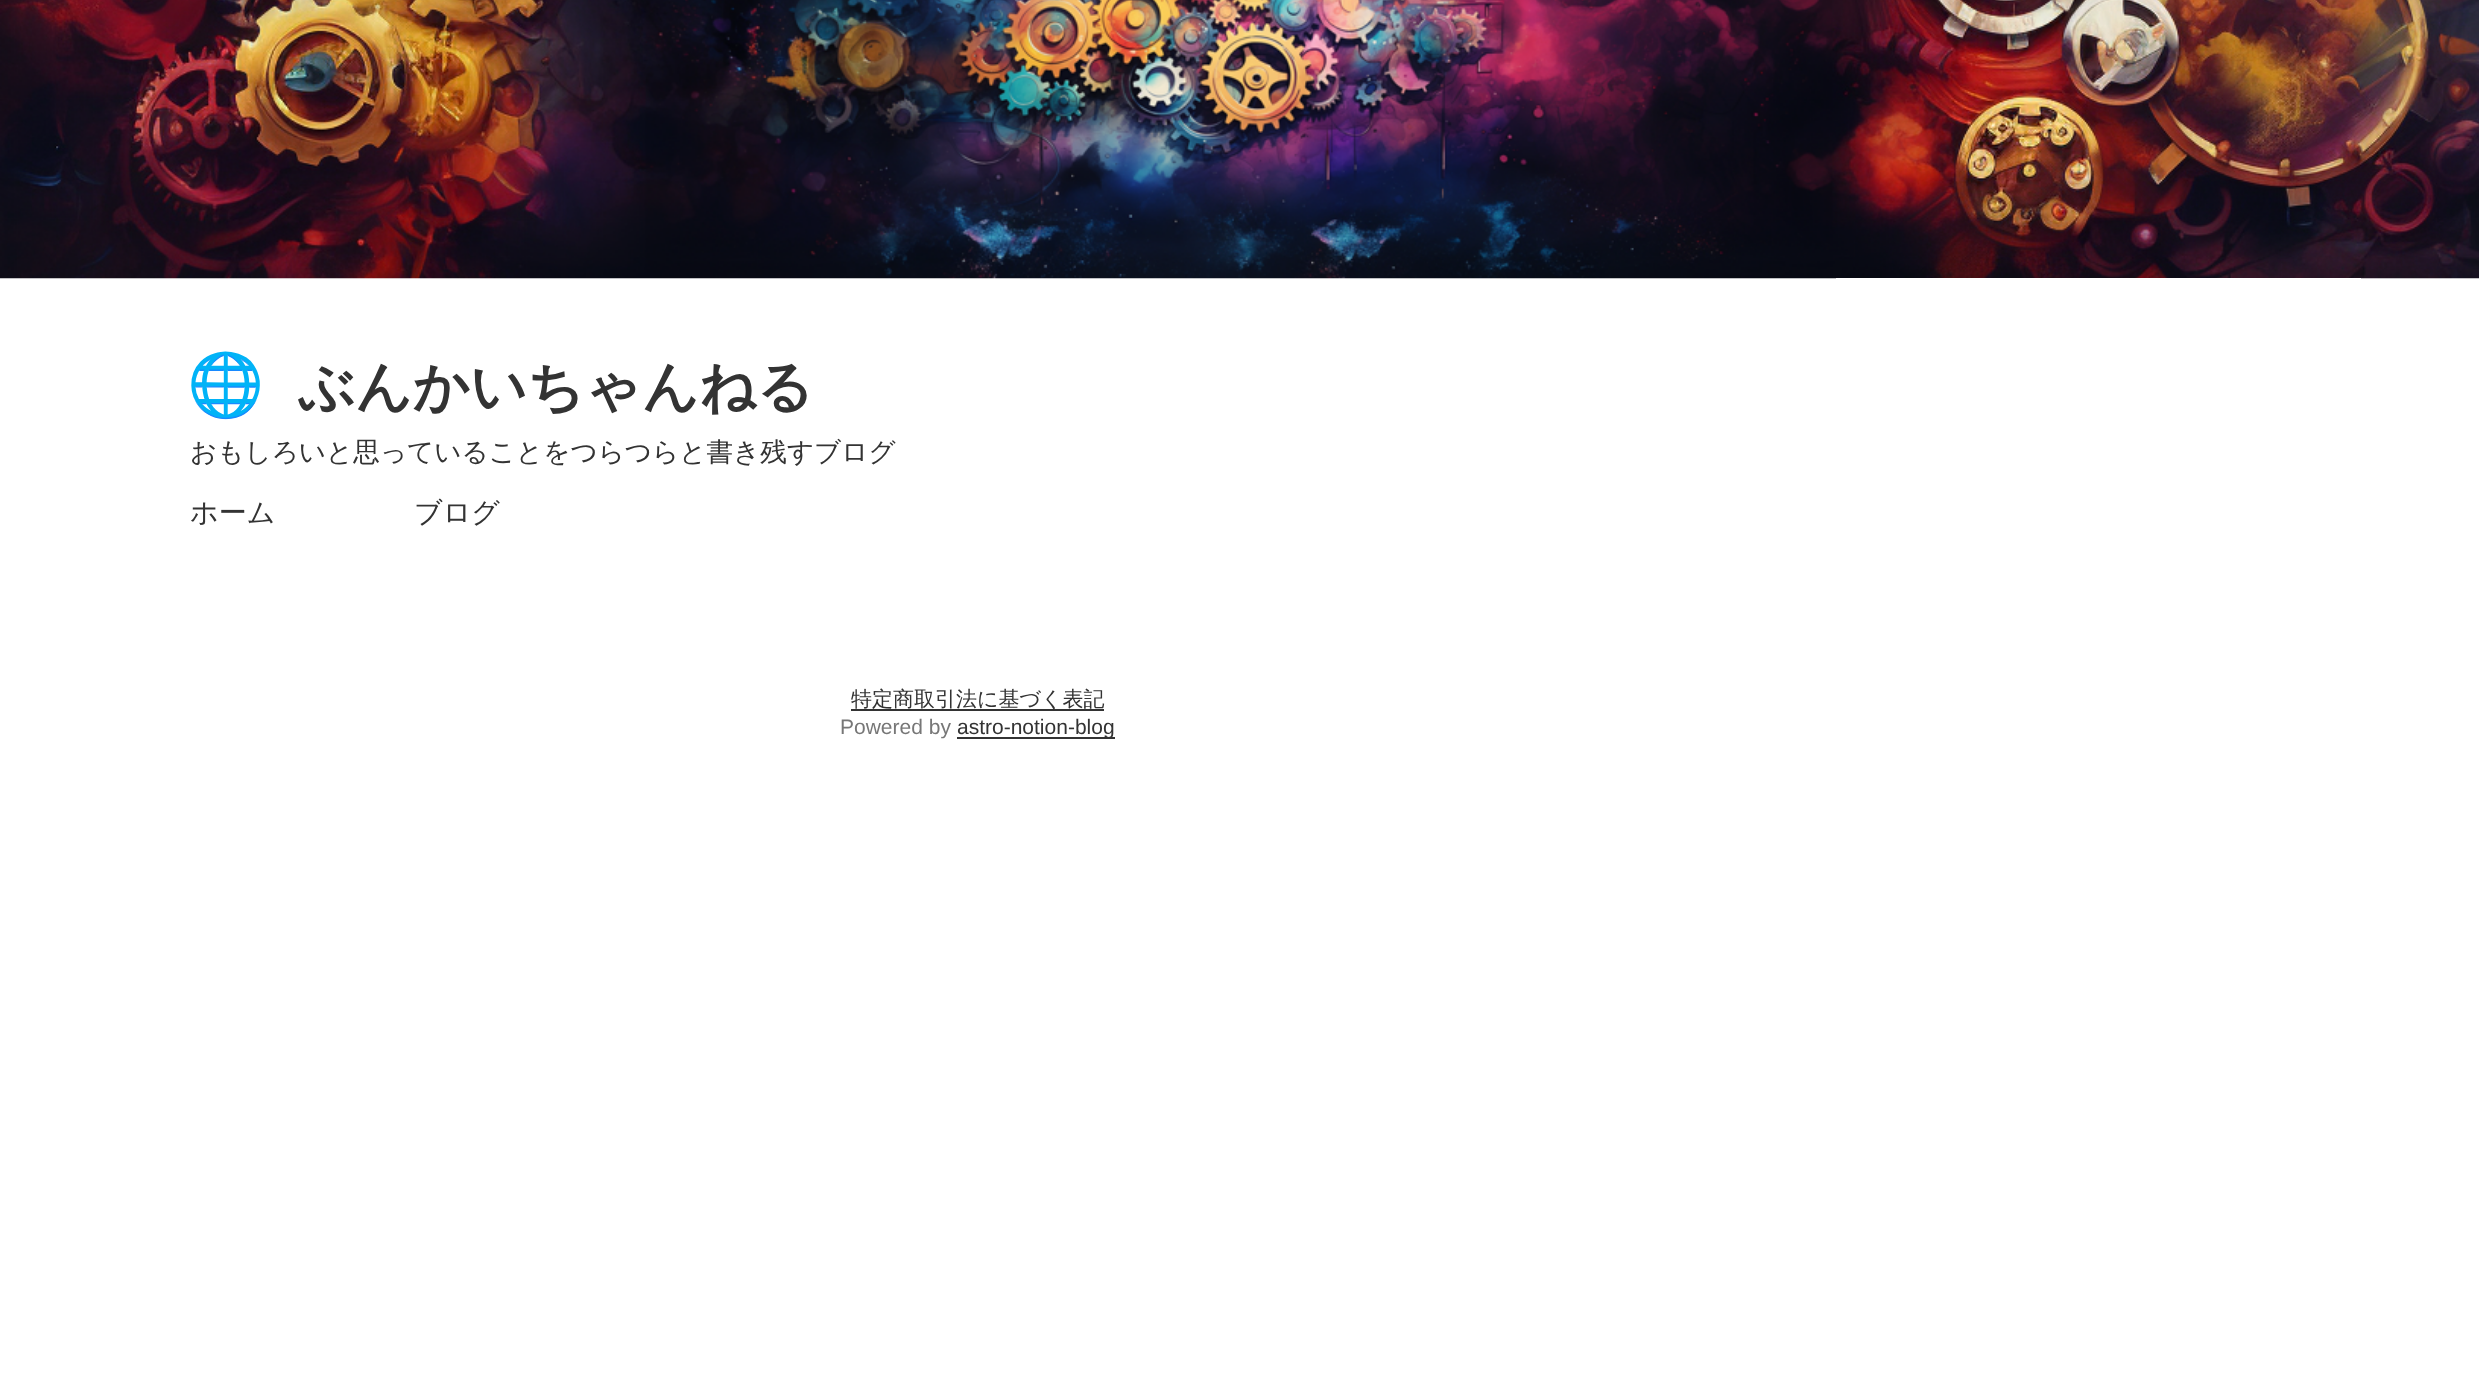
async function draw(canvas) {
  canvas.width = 2479
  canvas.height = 1388
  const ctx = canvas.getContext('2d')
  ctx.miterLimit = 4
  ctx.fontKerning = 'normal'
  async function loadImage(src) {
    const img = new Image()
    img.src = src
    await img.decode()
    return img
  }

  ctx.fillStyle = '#fff'
  ctx.fillRect(0, 0, 2479, 1388)
  ctx.drawImage(await loadImage('image0.png'), 0, 0, 2479, 279)
  ctx.fillRect(1836, 278, 525, 1)
  ctx.font = 'bold 62px Noto Color Emoji'
  ctx.fillStyle = '#333'
  ctx.fillText('🌐', 187, 406)
  ctx.font = 'bold 56px WenQuanYi Zen Hei'
  ctx.fillText('ぶんかいちゃんねる', 298, 406)
  ctx.font = '500 26.6px WenQuanYi Zen Hei'
  ctx.fillText('おもしろいと思っていることをつらつらと書き残すブログ', 190, 461)
  ctx.font = '500 28px WenQuanYi Zen Hei'
  ctx.fillText('ホーム', 190, 522)
  ctx.fillText('ブログ', 414, 522)
  ctx.fillRect(851, 709, 253, 2)
  ctx.font = '500 21px WenQuanYi Zen Hei'
  ctx.fillText('特定商取引法に基づく表記', 851, 706)
  ctx.font = '21px Liberation Sans'
  ctx.fillStyle = '#777'
  ctx.fillText('Powered by', 840, 734)
  ctx.fillStyle = '#333'
  ctx.fillRect(957, 737, 158, 2)
  ctx.fillText('astro-notion-blog', 957, 734)
}

draw(document.querySelector('canvas'))
